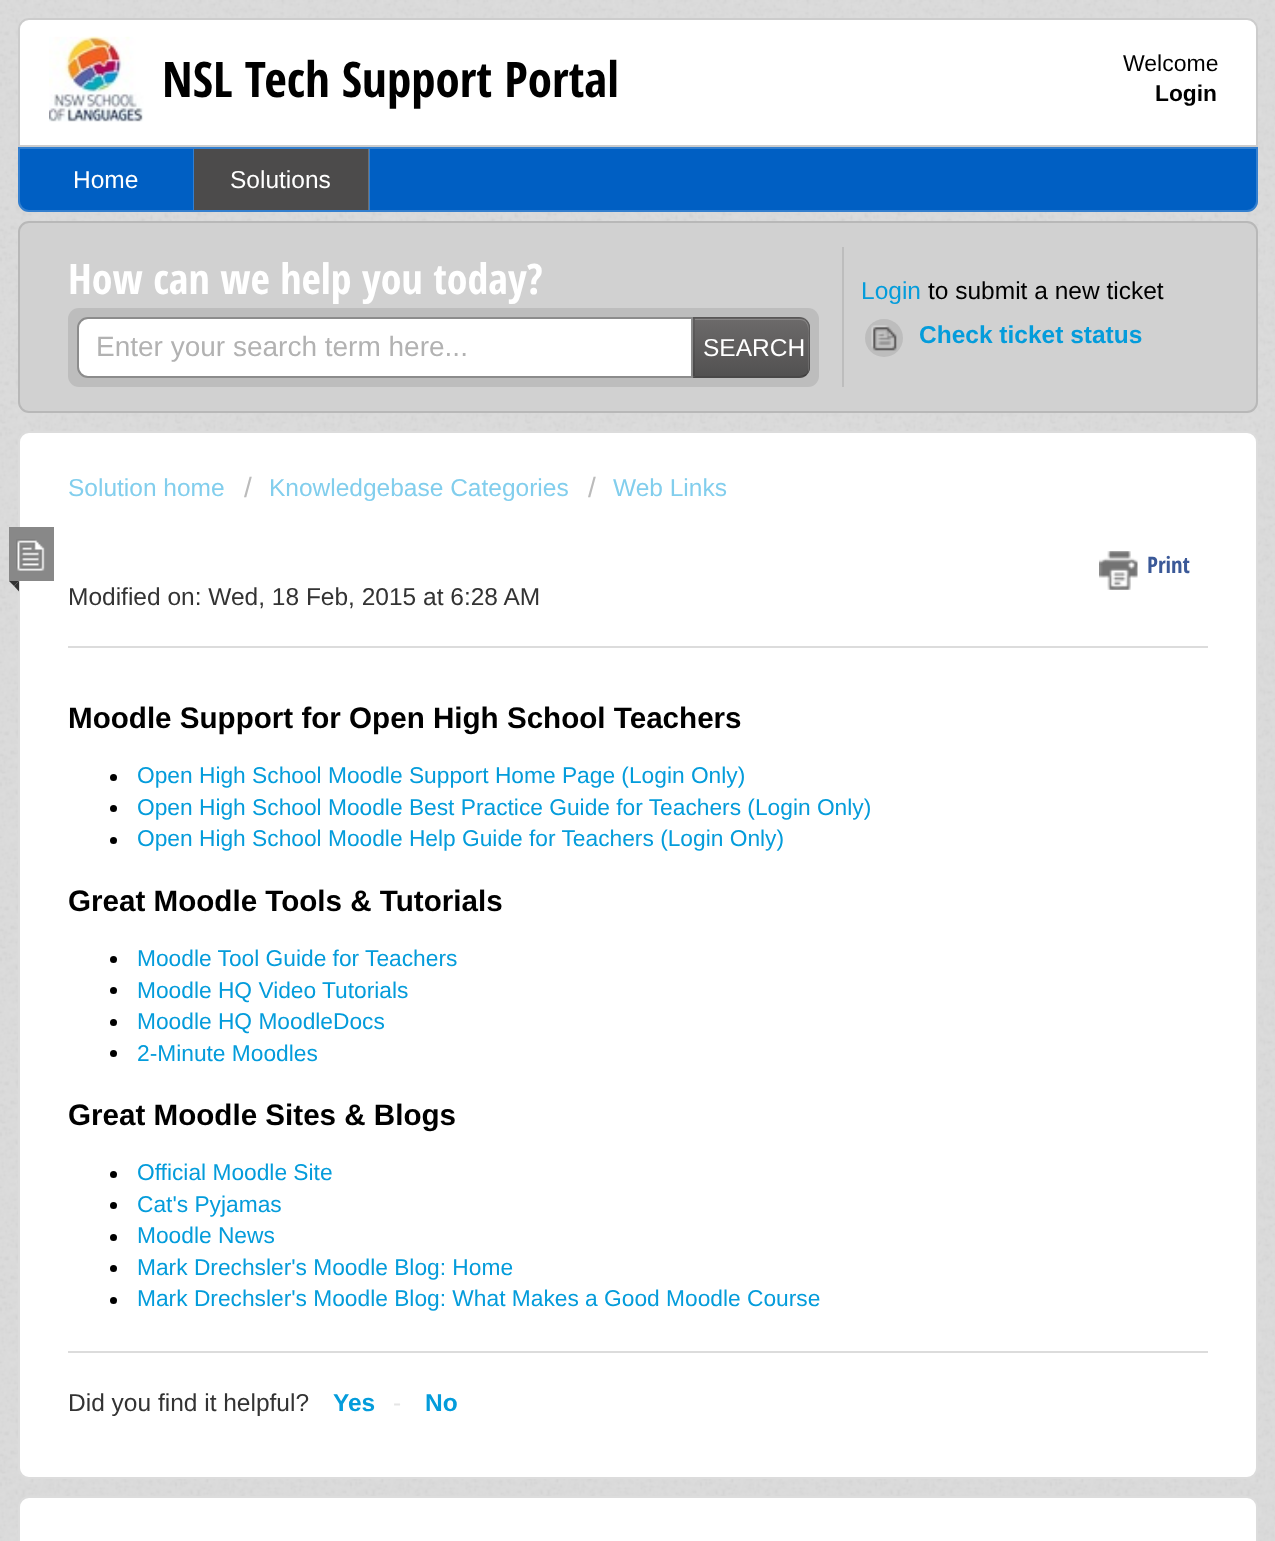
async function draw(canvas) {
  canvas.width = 1275
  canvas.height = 1541
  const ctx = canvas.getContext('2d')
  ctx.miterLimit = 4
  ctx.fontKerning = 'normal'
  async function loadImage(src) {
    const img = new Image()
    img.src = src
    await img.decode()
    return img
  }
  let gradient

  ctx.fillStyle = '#dbdbdb'
  ctx.fillRect(0, 0, 1275, 1541)
  ctx.drawImage(await loadImage('image0.png'), 0, 0, 1275, 1541)
  ctx.fillStyle = '#fff'
  ctx.beginPath()
  ctx.roundRect(18, 18, 1240, 129, [11, 11, 0, 0])
  ctx.fill()
  ctx.beginPath()
  ctx.roundRect(19, 19, 1238, 127, [10, 10, 0, 0])
  ctx.strokeStyle = '#00000033'
  ctx.lineWidth = 2
  ctx.stroke()
  ctx.drawImage(await loadImage('image1.png'), 49, 36, 95, 86)
  ctx.font = 'bold 49px Open Sans Condensed'
  ctx.fillStyle = '#000'
  ctx.fillText('NSL Tech Support Portal', 162, 97)
  ctx.font = '23px Liberation Sans'
  ctx.fillText('Welcome', 1123, 71)
  ctx.font = 'bold 22.75px Liberation Sans'
  ctx.fillText('Login', 1155, 101)
  ctx.fillStyle = '#005fc3'
  ctx.beginPath()
  ctx.roundRect(18, 147, 1240, 65, [0, 0, 11, 11])
  ctx.fill()
  ctx.beginPath()
  ctx.roundRect(19, 148, 1238, 63, [0, 0, 10, 10])
  ctx.strokeStyle = '#ffffff33'
  ctx.stroke()
  ctx.fillStyle = '#337fcf'
  ctx.fillRect(193, 149, 1, 61)
  ctx.font = '24.5px Liberation Sans'
  ctx.fillStyle = '#fff'
  ctx.fillText('Home', 73, 188)
  ctx.fillStyle = '#4c4b4b'
  ctx.fillRect(194, 149, 175, 61)
  ctx.fillStyle = '#ffffff33'
  ctx.fillRect(368, 149, 2, 61)
  ctx.fillStyle = '#fff'
  ctx.fillText('Solutions', 230, 188)
  ctx.fillStyle = '#d1d1d1'
  ctx.beginPath()
  ctx.roundRect(19, 222, 1238, 190, 10)
  ctx.fill()
  ctx.strokeStyle = '#b8b8b8'
  ctx.stroke()
  ctx.fillStyle = '#bdbdbd'
  ctx.fillRect(842, 247, 2, 140)
  ctx.font = 'bold 42px Open Sans Condensed'
  ctx.fillStyle = '#fff'
  ctx.fillText('How can we help you today?', 68, 294)
  ctx.fillStyle = '#bdbdbd'
  ctx.beginPath()
  ctx.roundRect(68, 308, 751, 79, 11)
  ctx.fill()
  ctx.fillStyle = '#fff'
  ctx.beginPath()
  ctx.roundRect(78, 318, 614, 59, [10, 0, 0, 10])
  ctx.fill()
  ctx.strokeStyle = '#8c8c8c'
  ctx.stroke()
  ctx.font = '28px Liberation Sans'
  ctx.fillStyle = '#b2b2b2'
  ctx.fillText('Enter your search term here...', 96, 356)
  ctx.fillStyle = '#626060'
  ctx.beginPath()
  ctx.roundRect(693, 317, 117, 61, [0, 11, 11, 0])
  ctx.fill()
  ctx.save()
  ctx.beginPath()
  ctx.roundRect(693, 317, 117, 61, [0, 11, 11, 0])
  ctx.clip()
  gradient = ctx.createLinearGradient(752, 319, 752, 376)
  gradient.addColorStop(0, '#6c6a6a')
  gradient.addColorStop(1, '#525151')
  ctx.fillStyle = gradient
  ctx.fillRect(693, 319, 117, 57)
  ctx.restore()
  ctx.fillStyle = '#ffffff33'
  ctx.beginPath()
  ctx.moveTo(695, 320)
  ctx.lineTo(800, 320)
  ctx.bezierCurveTo(811, 320, 808, 336, 808, 342)
  ctx.lineTo(808, 372)
  ctx.bezierCurveTo(809, 370, 809, 369, 809, 367)
  ctx.lineTo(809, 328)
  ctx.bezierCurveTo(809, 323, 805, 319, 800, 319)
  ctx.lineTo(695, 319)
  ctx.closePath()
  ctx.fill()
  ctx.fillStyle = '#0000001a'
  ctx.beginPath()
  ctx.moveTo(695, 318)
  ctx.lineTo(800, 318)
  ctx.bezierCurveTo(803, 318, 805, 319, 806, 321)
  ctx.lineTo(807, 320)
  ctx.bezierCurveTo(806, 318, 803, 317, 800, 317)
  ctx.lineTo(693, 317)
  ctx.lineTo(695, 319)
  ctx.closePath()
  ctx.fill()
  ctx.beginPath()
  ctx.moveTo(807, 320)
  ctx.bezierCurveTo(809, 322, 810, 324, 810, 327)
  ctx.lineTo(810, 368)
  ctx.bezierCurveTo(810, 371, 809, 373, 807, 375)
  ctx.lineTo(806, 374)
  ctx.bezierCurveTo(807, 372, 808, 370, 808, 368)
  ctx.lineTo(808, 327)
  ctx.bezierCurveTo(808, 325, 807, 323, 806, 321)
  ctx.closePath()
  ctx.fill()
  ctx.fillStyle = '#00000040'
  ctx.beginPath()
  ctx.moveTo(800, 378)
  ctx.bezierCurveTo(803, 378, 805, 377, 807, 375)
  ctx.lineTo(806, 374)
  ctx.bezierCurveTo(804, 375, 802, 376, 800, 376)
  ctx.lineTo(695, 376)
  ctx.lineTo(693, 378)
  ctx.closePath()
  ctx.fill()
  ctx.fillStyle = '#0000001a'
  ctx.beginPath()
  ctx.moveTo(693, 378)
  ctx.lineTo(695, 376)
  ctx.lineTo(695, 319)
  ctx.lineTo(693, 317)
  ctx.closePath()
  ctx.fill()
  ctx.font = '24.5px Liberation Sans'
  ctx.fillStyle = '#fff'
  ctx.fillText('SEARCH', 703, 356)
  ctx.fillStyle = '#049cdb'
  ctx.fillText('Login', 861, 299)
  ctx.fillStyle = '#000'
  ctx.fillText('to submit a new ticket', 928, 299)
  ctx.fillStyle = '#bdbdbd'
  ctx.beginPath()
  ctx.arc(884, 338, 19, 0, 2 * Math.PI)
  ctx.fill()
  ctx.drawImage(await loadImage('image2.png'), 871, 325, 26, 26)
  ctx.font = 'bold 24.5px Liberation Sans'
  ctx.fillStyle = '#049cdb'
  ctx.fillText('Check ticket status', 919, 343)
  ctx.fillStyle = '#fff'
  ctx.beginPath()
  ctx.roundRect(19, 432, 1238, 1046, 10)
  ctx.fill()
  ctx.strokeStyle = '#dcdcdc'
  ctx.stroke()
  ctx.font = '24.5px Liberation Sans'
  ctx.fillStyle = '#82ceed'
  ctx.fillText('Solution home', 68, 496)
  ctx.font = '28px Liberation Sans'
  ctx.fillStyle = '#bbb'
  ctx.fillText('/', 244, 497)
  ctx.font = '24.5px Liberation Sans'
  ctx.fillStyle = '#82ceed'
  ctx.fillText('Knowledgebase Categories', 269, 496)
  ctx.font = '28px Liberation Sans'
  ctx.fillStyle = '#bbb'
  ctx.fillText('/', 588, 497)
  ctx.font = '24.5px Liberation Sans'
  ctx.fillStyle = '#82ceed'
  ctx.fillText('Web Links', 613, 496)
  ctx.fillStyle = '#888'
  ctx.fillRect(9, 527, 45, 54)
  ctx.drawImage(await loadImage('image3.png'), 16, 539, 29, 32)
  ctx.fillStyle = '#333'
  ctx.beginPath()
  ctx.moveTo(9, 581)
  ctx.lineTo(19, 581)
  ctx.lineTo(14, 586)
  ctx.closePath()
  ctx.fill()
  ctx.beginPath()
  ctx.moveTo(19, 581)
  ctx.lineTo(19, 591.5)
  ctx.lineTo(14, 586)
  ctx.closePath()
  ctx.fill()
  ctx.drawImage(await loadImage('image4.png'), 1099, 551, 39, 39)
  ctx.font = 'bold 22.75px Open Sans Condensed'
  ctx.fillStyle = '#3b5998'
  ctx.fillText('Print', 1147, 573)
  ctx.font = '24.5px Liberation Sans'
  ctx.fillStyle = '#333'
  ctx.fillText('Modified on: Wed, 18 Feb, 2015 at 6:28 AM', 68, 605)
  ctx.fillStyle = '#dcdcdc'
  ctx.fillRect(68, 646, 1140, 2)
  ctx.font = 'bold 29.6px Liberation Sans'
  ctx.fillStyle = '#000'
  ctx.fillText('Moodle Support for Open High School Teachers', 68, 728)
  ctx.beginPath()
  ctx.arc(113.5, 777.5, 3.5, 0, 2 * Math.PI)
  ctx.fill()
  ctx.font = '22.75px Liberation Sans'
  ctx.fillStyle = '#049cdb'
  ctx.fillText('Open High School Moodle Support Home Page (Login Only)', 137, 783)
  ctx.fillStyle = '#000'
  ctx.beginPath()
  ctx.arc(113.5, 808.5, 3.5, 0, 2 * Math.PI)
  ctx.fill()
  ctx.fillStyle = '#049cdb'
  ctx.fillText('Open High School Moodle Best Practice Guide for Teachers (Login Only)', 137, 815)
  ctx.fillStyle = '#000'
  ctx.beginPath()
  ctx.arc(113.5, 840.5, 3.5, 0, 2 * Math.PI)
  ctx.fill()
  ctx.fillStyle = '#049cdb'
  ctx.fillText('Open High School Moodle Help Guide for Teachers (Login Only)', 137, 846)
  ctx.font = 'bold 29.6px Liberation Sans'
  ctx.fillStyle = '#000'
  ctx.fillText('Great Moodle Tools & Tutorials', 68, 911)
  ctx.beginPath()
  ctx.arc(113.5, 959.5, 3.5, 0, 2 * Math.PI)
  ctx.fill()
  ctx.font = '22.75px Liberation Sans'
  ctx.fillStyle = '#049cdb'
  ctx.fillText('Moodle Tool Guide for Teachers', 137, 966)
  ctx.fillStyle = '#000'
  ctx.beginPath()
  ctx.arc(113.5, 990.5, 3.5, 0, 2 * Math.PI)
  ctx.fill()
  ctx.fillStyle = '#049cdb'
  ctx.fillText('Moodle HQ Video Tutorials', 137, 998)
  ctx.fillStyle = '#000'
  ctx.beginPath()
  ctx.arc(113.5, 1022.5, 3.5, 0, 2 * Math.PI)
  ctx.fill()
  ctx.fillStyle = '#049cdb'
  ctx.fillText('Moodle HQ MoodleDocs', 137, 1029)
  ctx.fillStyle = '#000'
  ctx.beginPath()
  ctx.arc(113.5, 1053.5, 3.5, 0, 2 * Math.PI)
  ctx.fill()
  ctx.fillStyle = '#049cdb'
  ctx.fillText('2-Minute Moodles', 137, 1061)
  ctx.font = 'bold 29.6px Liberation Sans'
  ctx.fillStyle = '#000'
  ctx.fillText('Great Moodle Sites & Blogs', 68, 1125)
  ctx.beginPath()
  ctx.arc(113.5, 1174.5, 3.5, 0, 2 * Math.PI)
  ctx.fill()
  ctx.font = '22.75px Liberation Sans'
  ctx.fillStyle = '#049cdb'
  ctx.fillText('Official Moodle Site', 137, 1180)
  ctx.fillStyle = '#000'
  ctx.beginPath()
  ctx.arc(113.5, 1205.5, 3.5, 0, 2 * Math.PI)
  ctx.fill()
  ctx.fillStyle = '#049cdb'
  ctx.fillText('Cat\'s Pyjamas', 137, 1212)
  ctx.fillStyle = '#000'
  ctx.beginPath()
  ctx.arc(113.5, 1237.5, 3.5, 0, 2 * Math.PI)
  ctx.fill()
  ctx.fillStyle = '#049cdb'
  ctx.fillText('Moodle News', 137, 1243)
  ctx.fillStyle = '#000'
  ctx.beginPath()
  ctx.arc(113.5, 1268.5, 3.5, 0, 2 * Math.PI)
  ctx.fill()
  ctx.fillStyle = '#049cdb'
  ctx.fillText('Mark Drechsler\'s Moodle Blog: Home', 137, 1275)
  ctx.fillStyle = '#000'
  ctx.beginPath()
  ctx.arc(113.5, 1300.5, 3.5, 0, 2 * Math.PI)
  ctx.fill()
  ctx.fillStyle = '#049cdb'
  ctx.fillText('Mark Drechsler\'s Moodle Blog: What Makes a Good Moodle Course', 137, 1306)
  ctx.fillStyle = '#dcdcdc'
  ctx.fillRect(68, 1351, 1140, 2)
  ctx.font = '24.5px Liberation Sans'
  ctx.fillStyle = '#333'
  ctx.fillText('Did you find it helpful?', 68, 1411)
  ctx.font = 'bold 24.5px Liberation Sans'
  ctx.fillStyle = '#049cdb'
  ctx.fillText('Yes', 333, 1411)
  ctx.font = '24.5px Liberation Sans'
  ctx.fillStyle = '#e5e5e5'
  ctx.fillText('-', 393, 1411)
  ctx.font = 'bold 24.5px Liberation Sans'
  ctx.fillStyle = '#049cdb'
  ctx.fillText('No', 425, 1411)
  ctx.fillStyle = '#fff'
  ctx.beginPath()
  ctx.roundRect(19, 1497, 1238, 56, 10)
  ctx.fill()
  ctx.stroke()
}

draw(document.querySelector('canvas'))
